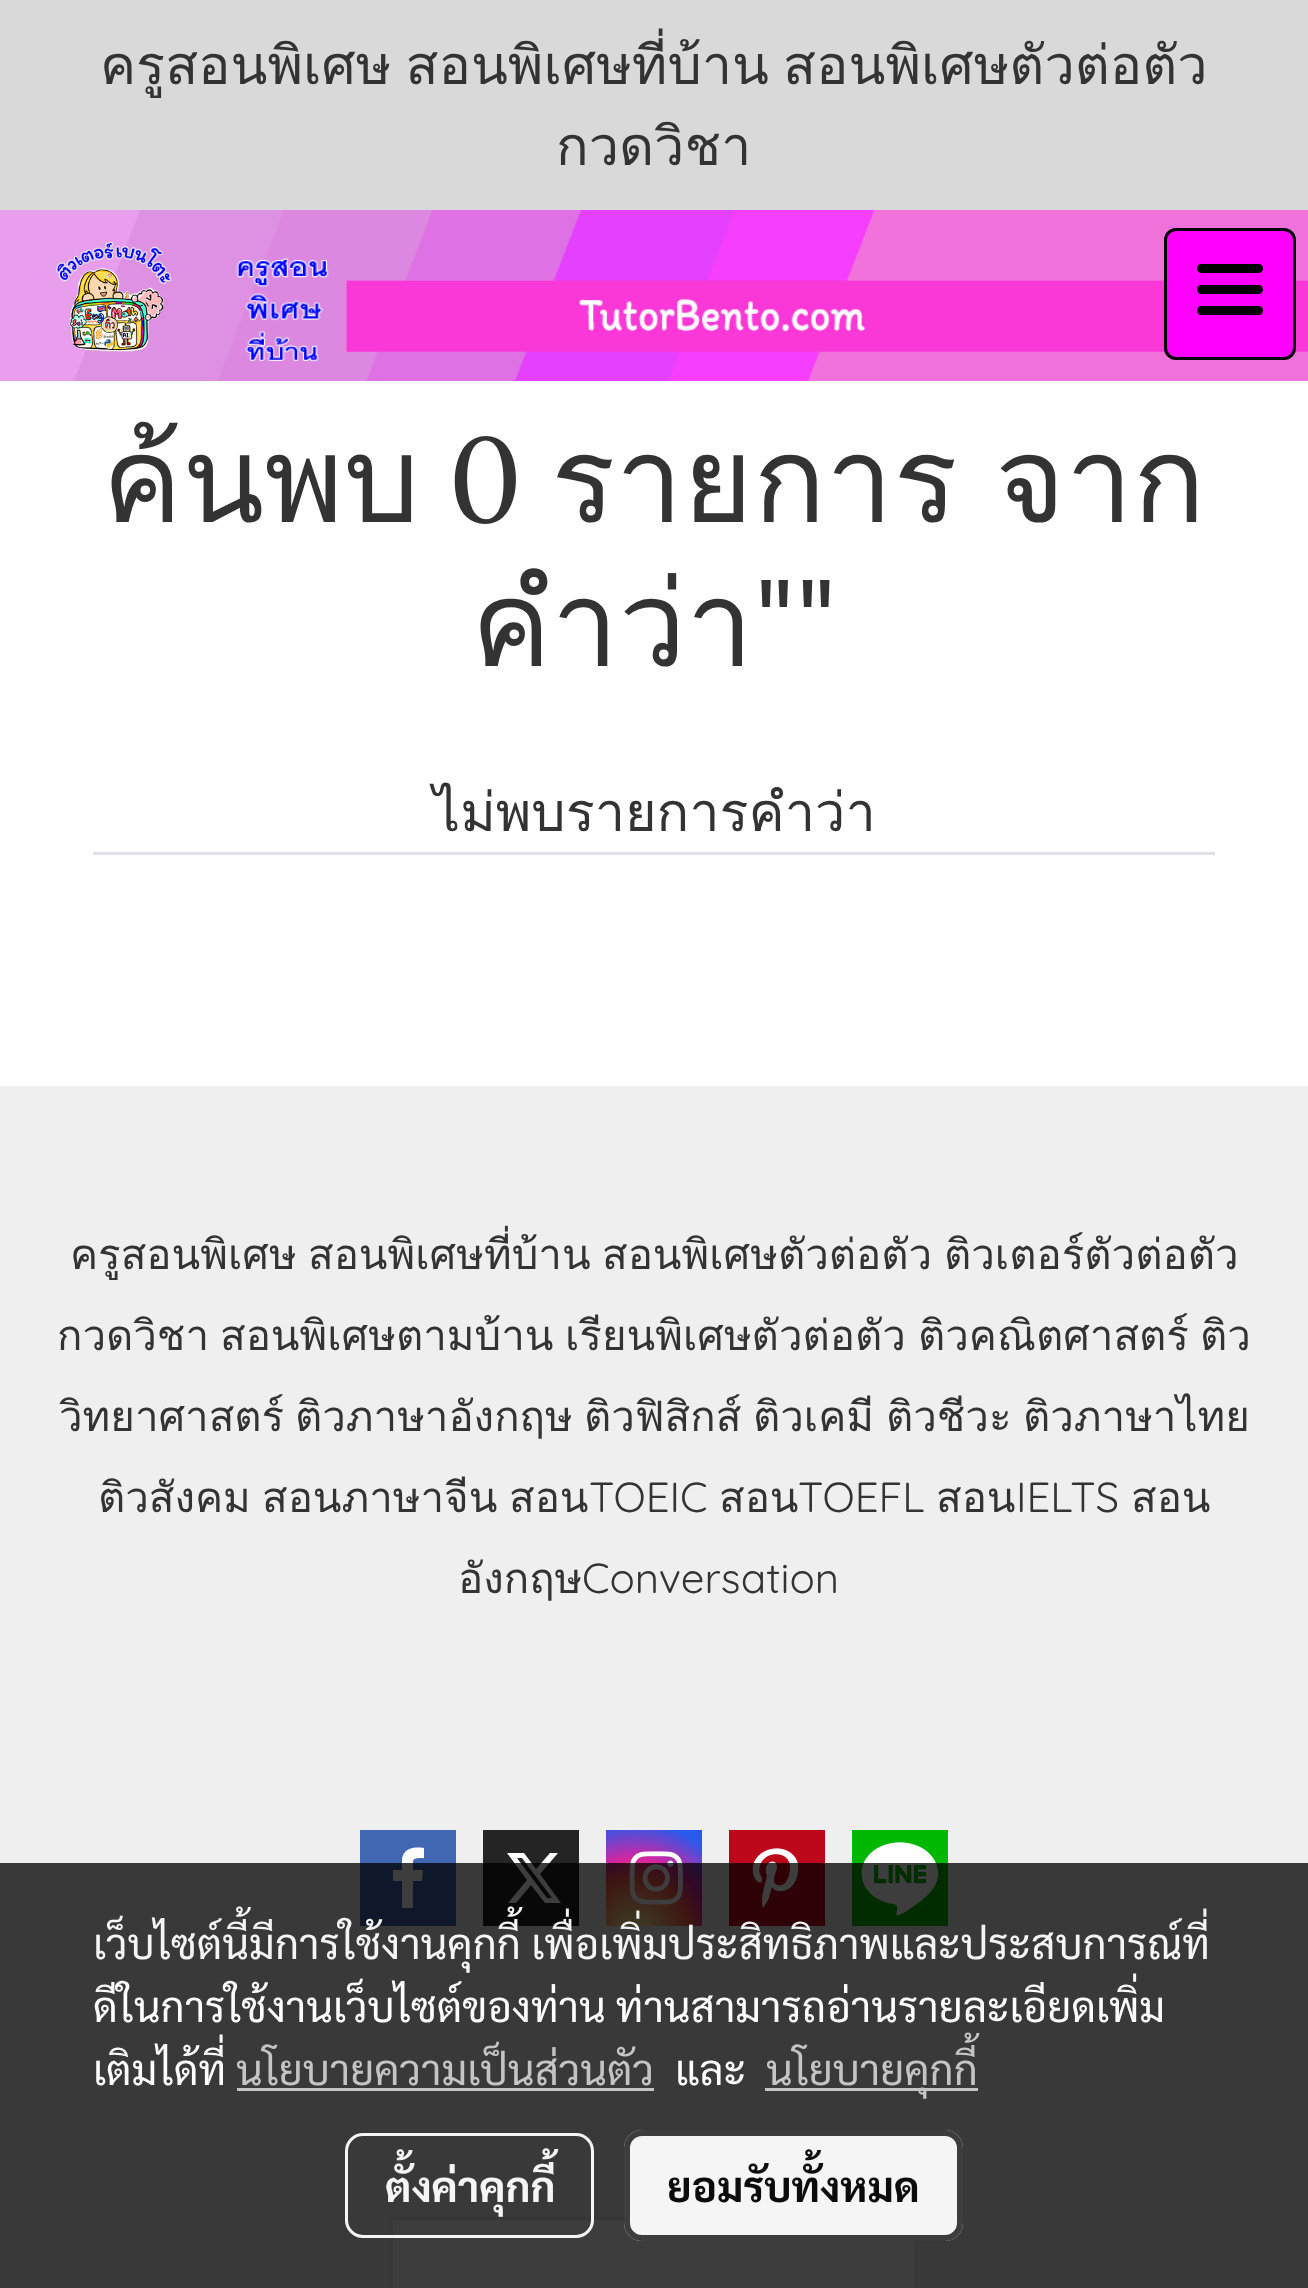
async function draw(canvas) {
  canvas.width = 1308
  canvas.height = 2288
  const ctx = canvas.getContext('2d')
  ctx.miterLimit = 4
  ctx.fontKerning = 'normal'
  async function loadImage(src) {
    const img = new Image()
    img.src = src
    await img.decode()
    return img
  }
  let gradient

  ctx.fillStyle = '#fff'
  ctx.fillRect(0, 0, 1308, 2288)
  ctx.fillStyle = '#d9d9d9'
  ctx.fillRect(0, 0, 1308, 210)
  ctx.wordSpacing = '-4px'
  ctx.font = '54px Loma'
  ctx.fillStyle = '#333'
  ctx.fillText('ครูสอนพิเศษ สอนพิเศษที่บ้าน สอนพิเศษตัวต่อตัว', 100, 84)
  ctx.wordSpacing = '0px'
  ctx.fillText('กวดวิชา', 556, 165)
  ctx.drawImage(await loadImage('image0.png'), 0, 210, 1308, 171)
  ctx.drawImage(await loadImage('image1.png'), 56, 241, 116, 111)
  ctx.fillStyle = '#f0f'
  ctx.beginPath()
  ctx.roundRect(1165.5, 229.5, 129, 129, 10.5)
  ctx.fill()
  ctx.strokeStyle = '#000'
  ctx.lineWidth = 3
  ctx.stroke()
  ctx.fillStyle = '#000'
  ctx.beginPath()
  ctx.roundRect(1197, 285, 66, 9, 4.5)
  ctx.fill()
  ctx.beginPath()
  ctx.roundRect(1197, 264, 66, 9, 4.5)
  ctx.fill()
  ctx.beginPath()
  ctx.roundRect(1197, 306, 66, 9, 4.5)
  ctx.fill()
  ctx.font = '120px Loma'
  ctx.fillStyle = '#333'
  ctx.fillText('ค้นพบ', 102, 522)
  ctx.font = '120px Lora'
  ctx.fillText('0', 448, 522)
  ctx.wordSpacing = '-3px'
  ctx.font = '120px Loma'
  ctx.fillText('รายการ จาก', 551, 522)
  ctx.wordSpacing = '0px'
  ctx.fillText('คำว่า', 471, 666)
  ctx.font = '120px Lora'
  ctx.fillText('""', 754, 666)
  ctx.fillStyle = '#dee2e6'
  ctx.fillRect(93, 852, 1122, 3)
  ctx.font = '54px Loma'
  ctx.fillStyle = '#333'
  ctx.fillText('ไม่พบรายการคำว่า', 433, 831)
  ctx.fillStyle = '#efefef'
  ctx.fillRect(0, 1086, 1308, 1202)
  ctx.font = '42px Loma'
  ctx.fillStyle = '#333'
  ctx.fillText('ครูสอนพิเศษ', 70, 1269)
  ctx.fillText('สอนพิเศษที่บ้าน', 308, 1269)
  ctx.fillText('สอนพิเศษตัวต่อตัว', 602, 1269)
  ctx.fillText('ติวเตอร์ตัวต่อตัว', 944, 1269)
  ctx.fillText('กวดวิชา', 57, 1350)
  ctx.fillText('สอนพิเศษตามบ้าน', 220, 1350)
  ctx.fillText('เรียนพิเศษตัวต่อตัว', 565, 1350)
  ctx.fillText('ติวคณิตศาสตร์', 918, 1350)
  ctx.fillText('ติว', 1200, 1350)
  ctx.fillText('วิทยาศาสตร์', 59, 1431)
  ctx.fillText('ติวภาษาอังกฤษ', 295, 1431)
  ctx.fillText('ติวฟิสิกส์', 584, 1431)
  ctx.fillText('ติวเคมี', 753, 1431)
  ctx.fillText('ติวชีวะ', 886, 1431)
  ctx.fillText('ติวภาษาไทย', 1023, 1431)
  ctx.fillText('ติวสังคม', 98, 1512)
  ctx.fillText('สอนภาษาจีน', 262, 1512)
  ctx.fillText('สอน', 509, 1512)
  ctx.font = '300 42px Quicksand'
  ctx.fillText('TOEIC', 589, 1512)
  ctx.font = '42px Loma'
  ctx.fillText('สอน', 719, 1512)
  ctx.font = '300 42px Quicksand'
  ctx.fillText('TOEFL', 798, 1512)
  ctx.font = '42px Loma'
  ctx.fillText('สอน', 936, 1512)
  ctx.font = '300 42px Quicksand'
  ctx.fillText('IELTS', 1016, 1512)
  ctx.font = '42px Loma'
  ctx.fillText('สอน', 1131, 1512)
  ctx.fillText('อังกฤษ', 458, 1593)
  ctx.font = '300 42px Quicksand'
  ctx.fillText('Conversation', 582, 1593)
  ctx.fillStyle = '#4267b2'
  ctx.fillRect(360, 1830, 96, 96)
  ctx.fillStyle = '#fff'
  ctx.beginPath()
  ctx.moveTo(402, 1908)
  ctx.lineTo(402, 1881)
  ctx.lineTo(393, 1881)
  ctx.lineTo(393, 1870)
  ctx.lineTo(402, 1870)
  ctx.lineTo(402, 1859)
  ctx.bezierCurveTo(404, 1847, 415, 1847, 424, 1848)
  ctx.lineTo(424, 1858)
  ctx.bezierCurveTo(411, 1858, 413, 1859, 413, 1870)
  ctx.lineTo(423, 1870)
  ctx.lineTo(422, 1881)
  ctx.lineTo(413, 1881)
  ctx.lineTo(413, 1908)
  ctx.fill()
  ctx.fillStyle = '#242424'
  ctx.fillRect(483, 1830, 96, 96)
  ctx.fillStyle = '#fff'
  ctx.beginPath()
  ctx.moveTo(550, 1853)
  ctx.lineTo(558, 1853)
  ctx.lineTo(540, 1874)
  ctx.lineTo(561, 1903)
  ctx.lineTo(545, 1903)
  ctx.lineTo(531, 1885)
  ctx.lineTo(516, 1903)
  ctx.lineTo(508, 1903)
  ctx.lineTo(527, 1880)
  ctx.lineTo(507, 1853)
  ctx.lineTo(524, 1853)
  ctx.lineTo(536, 1869)
  ctx.closePath()
  ctx.moveTo(547, 1898)
  ctx.lineTo(552, 1898)
  ctx.lineTo(522, 1858)
  ctx.lineTo(517, 1858)
  ctx.closePath()
  ctx.fill()
  gradient = ctx.createRadialGradient(635, 1933, 0, 635, 1933, 123)
  gradient.addColorStop(0, '#fdf497')
  gradient.addColorStop(0.05, '#fdf497')
  gradient.addColorStop(0.45, '#fd5949')
  gradient.addColorStop(0.6, '#d6249f')
  gradient.addColorStop(0.9, '#285aeb')
  ctx.fillStyle = gradient
  ctx.fillRect(606, 1830, 96, 96)
  ctx.drawImage(await loadImage('image2.png'), 629, 1851, 54, 54)
  ctx.fillStyle = '#bd081c'
  ctx.fillRect(729, 1830, 96, 96)
  ctx.drawImage(await loadImage('image3.png'), 752, 1848, 47, 60)
  ctx.fillStyle = '#00b800'
  ctx.fillRect(852, 1830, 96, 96)
  ctx.drawImage(await loadImage('image4.png'), 861, 1842, 78, 74)
  ctx.fillStyle = '#fff'
  ctx.beginPath()
  ctx.rect(391.5, 2218.5, 525, 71)
  ctx.fill()
  ctx.strokeStyle = '#e5e5e5'
  ctx.stroke()
  ctx.fillStyle = '#000000c2'
  ctx.fillRect(0, 1863, 1308, 425)
  ctx.font = '42px Sarabun'
  ctx.fillStyle = '#f5f5f5'
  ctx.fillText('เว็บไซต์นี้มีการใช้งานคุกกี้ เพื่อเพิ่มประสิทธิภาพและประสบการณ์ที่', 93, 1959)
  ctx.fillStyle = '#fefefe'
  ctx.fillText('ดีในการใช้งานเว็บไซต์ของท่าน ท่านสามารถอ่านรายละเอียดเพิ่ม', 93, 2022)
  ctx.fillText('เติมได้ที่', 93, 2085)
  ctx.fillStyle = '#c4c4c4'
  ctx.fillText('นโยบายความเป็นส่วนตัว', 236, 2085)
  ctx.fillRect(237, 2088, 417, 3)
  ctx.fillStyle = '#fefefe'
  ctx.fillText('และ', 675, 2085)
  ctx.fillStyle = '#c4c4c4'
  ctx.fillRect(765, 2088, 213, 3)
  ctx.fillText('นโยบายคุกกี้', 766, 2085)
  ctx.beginPath()
  ctx.roundRect(346.5, 2134.5, 246, 102, 16.5)
  ctx.strokeStyle = '#fffffff2'
  ctx.stroke()
  ctx.font = 'bold 42px Sarabun'
  ctx.fillStyle = '#f5f5f5'
  ctx.fillText('ตั้งค่าคุกกี้', 385, 2202)
  ctx.fillStyle = '#fffffff2'
  ctx.beginPath()
  ctx.roundRect(624, 2130, 339, 111, 18)
  ctx.fill()
  ctx.beginPath()
  ctx.roundRect(627, 2133, 333, 105, 15)
  ctx.strokeStyle = '#333333f2'
  ctx.lineWidth = 6
  ctx.stroke()
  ctx.fillStyle = '#0c0c0c'
  ctx.fillText('ยอมรับทั้งหมด', 667, 2202)
}

draw(document.querySelector('canvas'))
